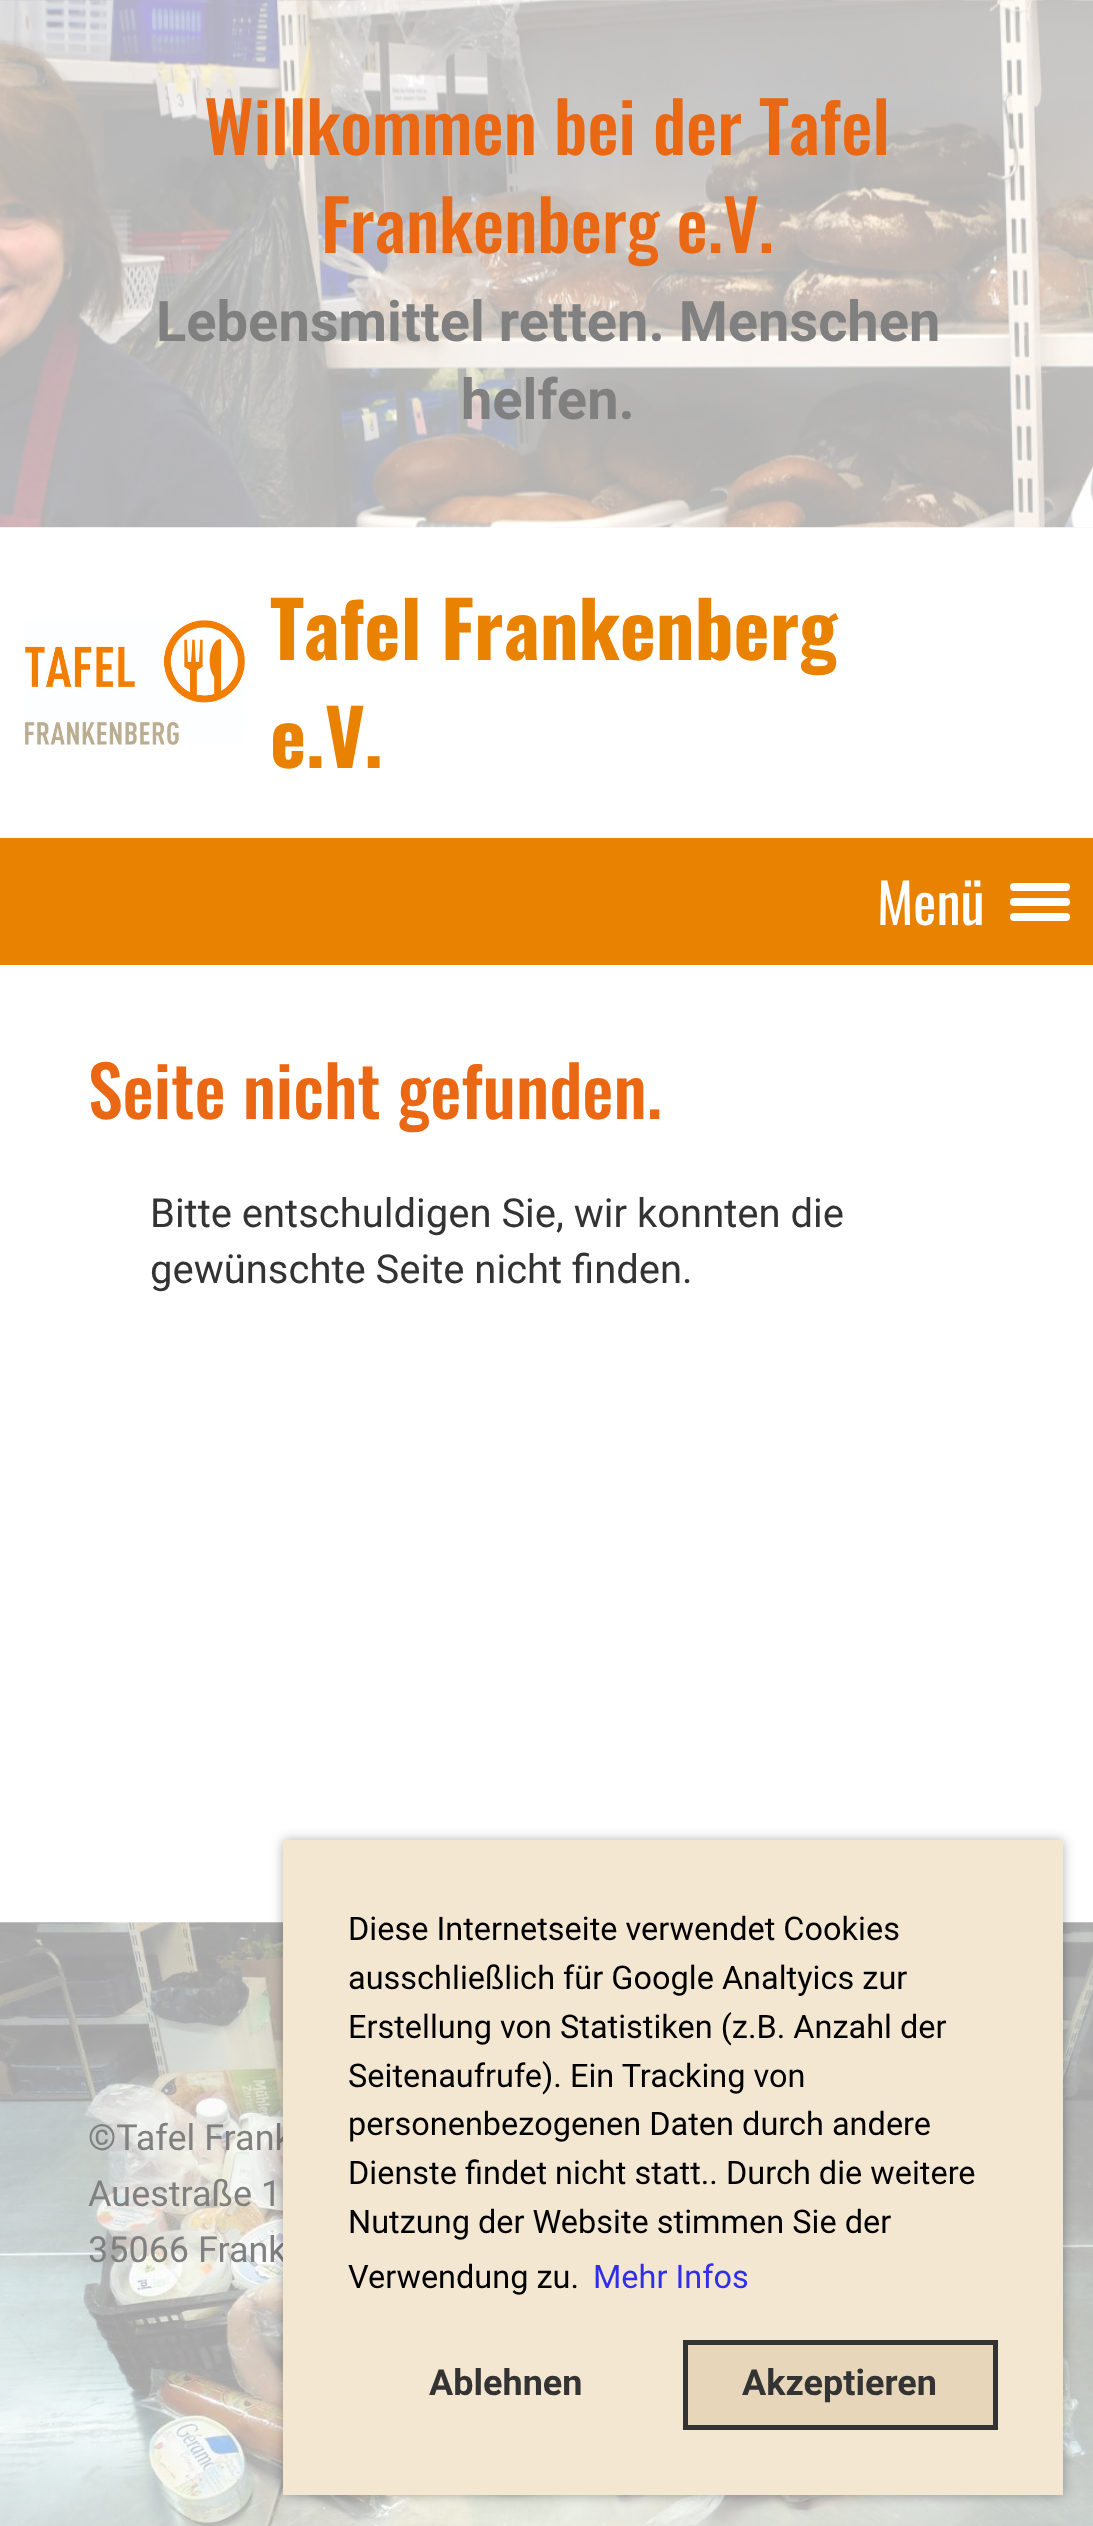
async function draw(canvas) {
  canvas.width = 1093
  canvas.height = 2526
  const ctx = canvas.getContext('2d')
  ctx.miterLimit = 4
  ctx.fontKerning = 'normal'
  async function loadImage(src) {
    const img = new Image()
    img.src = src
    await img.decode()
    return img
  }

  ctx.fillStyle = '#fff'
  ctx.fillRect(0, 0, 1093, 2526)
  ctx.drawImage(await loadImage('image0.png'), 0, 0, 1093, 528)
  ctx.font = '500 70px Oswald'
  ctx.fillStyle = '#ea6713'
  ctx.fillText('Willkommen bei der Tafel', 204, 155)
  ctx.fillText('Frankenberg e.V.', 321, 253)
  ctx.font = 'bold 56px Roboto'
  ctx.fillStyle = '#808080'
  ctx.fillText('Lebensmittel retten. Menschen', 156, 341)
  ctx.fillText('helfen.', 461, 419)
  ctx.drawImage(await loadImage('image1.png'), 25, 620, 220, 125)
  ctx.font = 'bold 76.75px Oswald'
  ctx.fillStyle = '#e98200'
  ctx.fillText('Tafel Frankenberg', 270, 660)
  ctx.fillText('e.V.', 270, 768)
  ctx.fillRect(0, 838, 1093, 127)
  ctx.font = '55px Oswald'
  ctx.fillStyle = '#fff'
  ctx.fillText('Menü', 877, 925)
  ctx.beginPath()
  ctx.roundRect(1010, 883, 60, 8, 4)
  ctx.fill()
  ctx.beginPath()
  ctx.roundRect(1010, 898, 60, 8, 4)
  ctx.fill()
  ctx.beginPath()
  ctx.roundRect(1010, 913, 60, 8, 4)
  ctx.fill()
  ctx.font = '500 70px Oswald'
  ctx.fillStyle = '#ea6713'
  ctx.fillText('Seite nicht gefunden.', 88, 1119)
  ctx.font = '40px Roboto'
  ctx.fillStyle = '#333'
  ctx.fillText('Bitte entschuldigen Sie, wir konnten die', 150, 1227)
  ctx.fillText('gewünschte Seite nicht finden.', 150, 1283)
  ctx.drawImage(await loadImage('image2.png'), 0, 1922, 1093, 604)
  ctx.font = '36px Roboto'
  ctx.fillStyle = '#808080'
  ctx.fillText('©Tafel Frank', 88, 2150)
  ctx.fillText('Auestraße 1', 88, 2206)
  ctx.fillText('35066 Frank', 88, 2262)
  ctx.fillStyle = '#0000004d'
  ctx.filter = 'blur(6px)'
  ctx.beginPath()
  ctx.rect(283, 1840, 780, 655)
  ctx.fill()
  ctx.filter = 'none'
  ctx.fillStyle = '#f4e7d2'
  ctx.fillRect(283, 1840, 780, 655)
  ctx.font = '32.5px Roboto'
  ctx.fillStyle = '#000'
  ctx.fillText('Diese Internetseite verwendet Cookies', 348, 1940)
  ctx.fillText('ausschließlich für Google Analtyics zur', 348, 1989)
  ctx.fillText('Erstellung von Statistiken (z.B. Anzahl der', 348, 2038)
  ctx.fillText('Seitenaufrufe). Ein Tracking von', 348, 2087)
  ctx.fillText('personenbezogenen Daten durch andere', 348, 2135)
  ctx.fillText('Dienste findet nicht statt.. Durch die weitere', 348, 2184)
  ctx.fillText('Nutzung der Website stimmen Sie der', 348, 2233)
  ctx.fillText('Verwendung zu.', 348, 2288)
  ctx.fillStyle = '#312ee8'
  ctx.fillText('Mehr Infos', 593, 2288)
  ctx.font = 'bold 36px Roboto'
  ctx.fillStyle = '#333'
  ctx.fillText('Ablehnen', 429, 2395)
  ctx.fillStyle = '#e8d6ba'
  ctx.beginPath()
  ctx.rect(685.5, 2342.5, 310, 85)
  ctx.fill()
  ctx.strokeStyle = '#333'
  ctx.lineWidth = 5
  ctx.stroke()
  ctx.fillStyle = '#333'
  ctx.fillText('Akzeptieren', 742, 2395)
}

draw(document.querySelector('canvas'))
